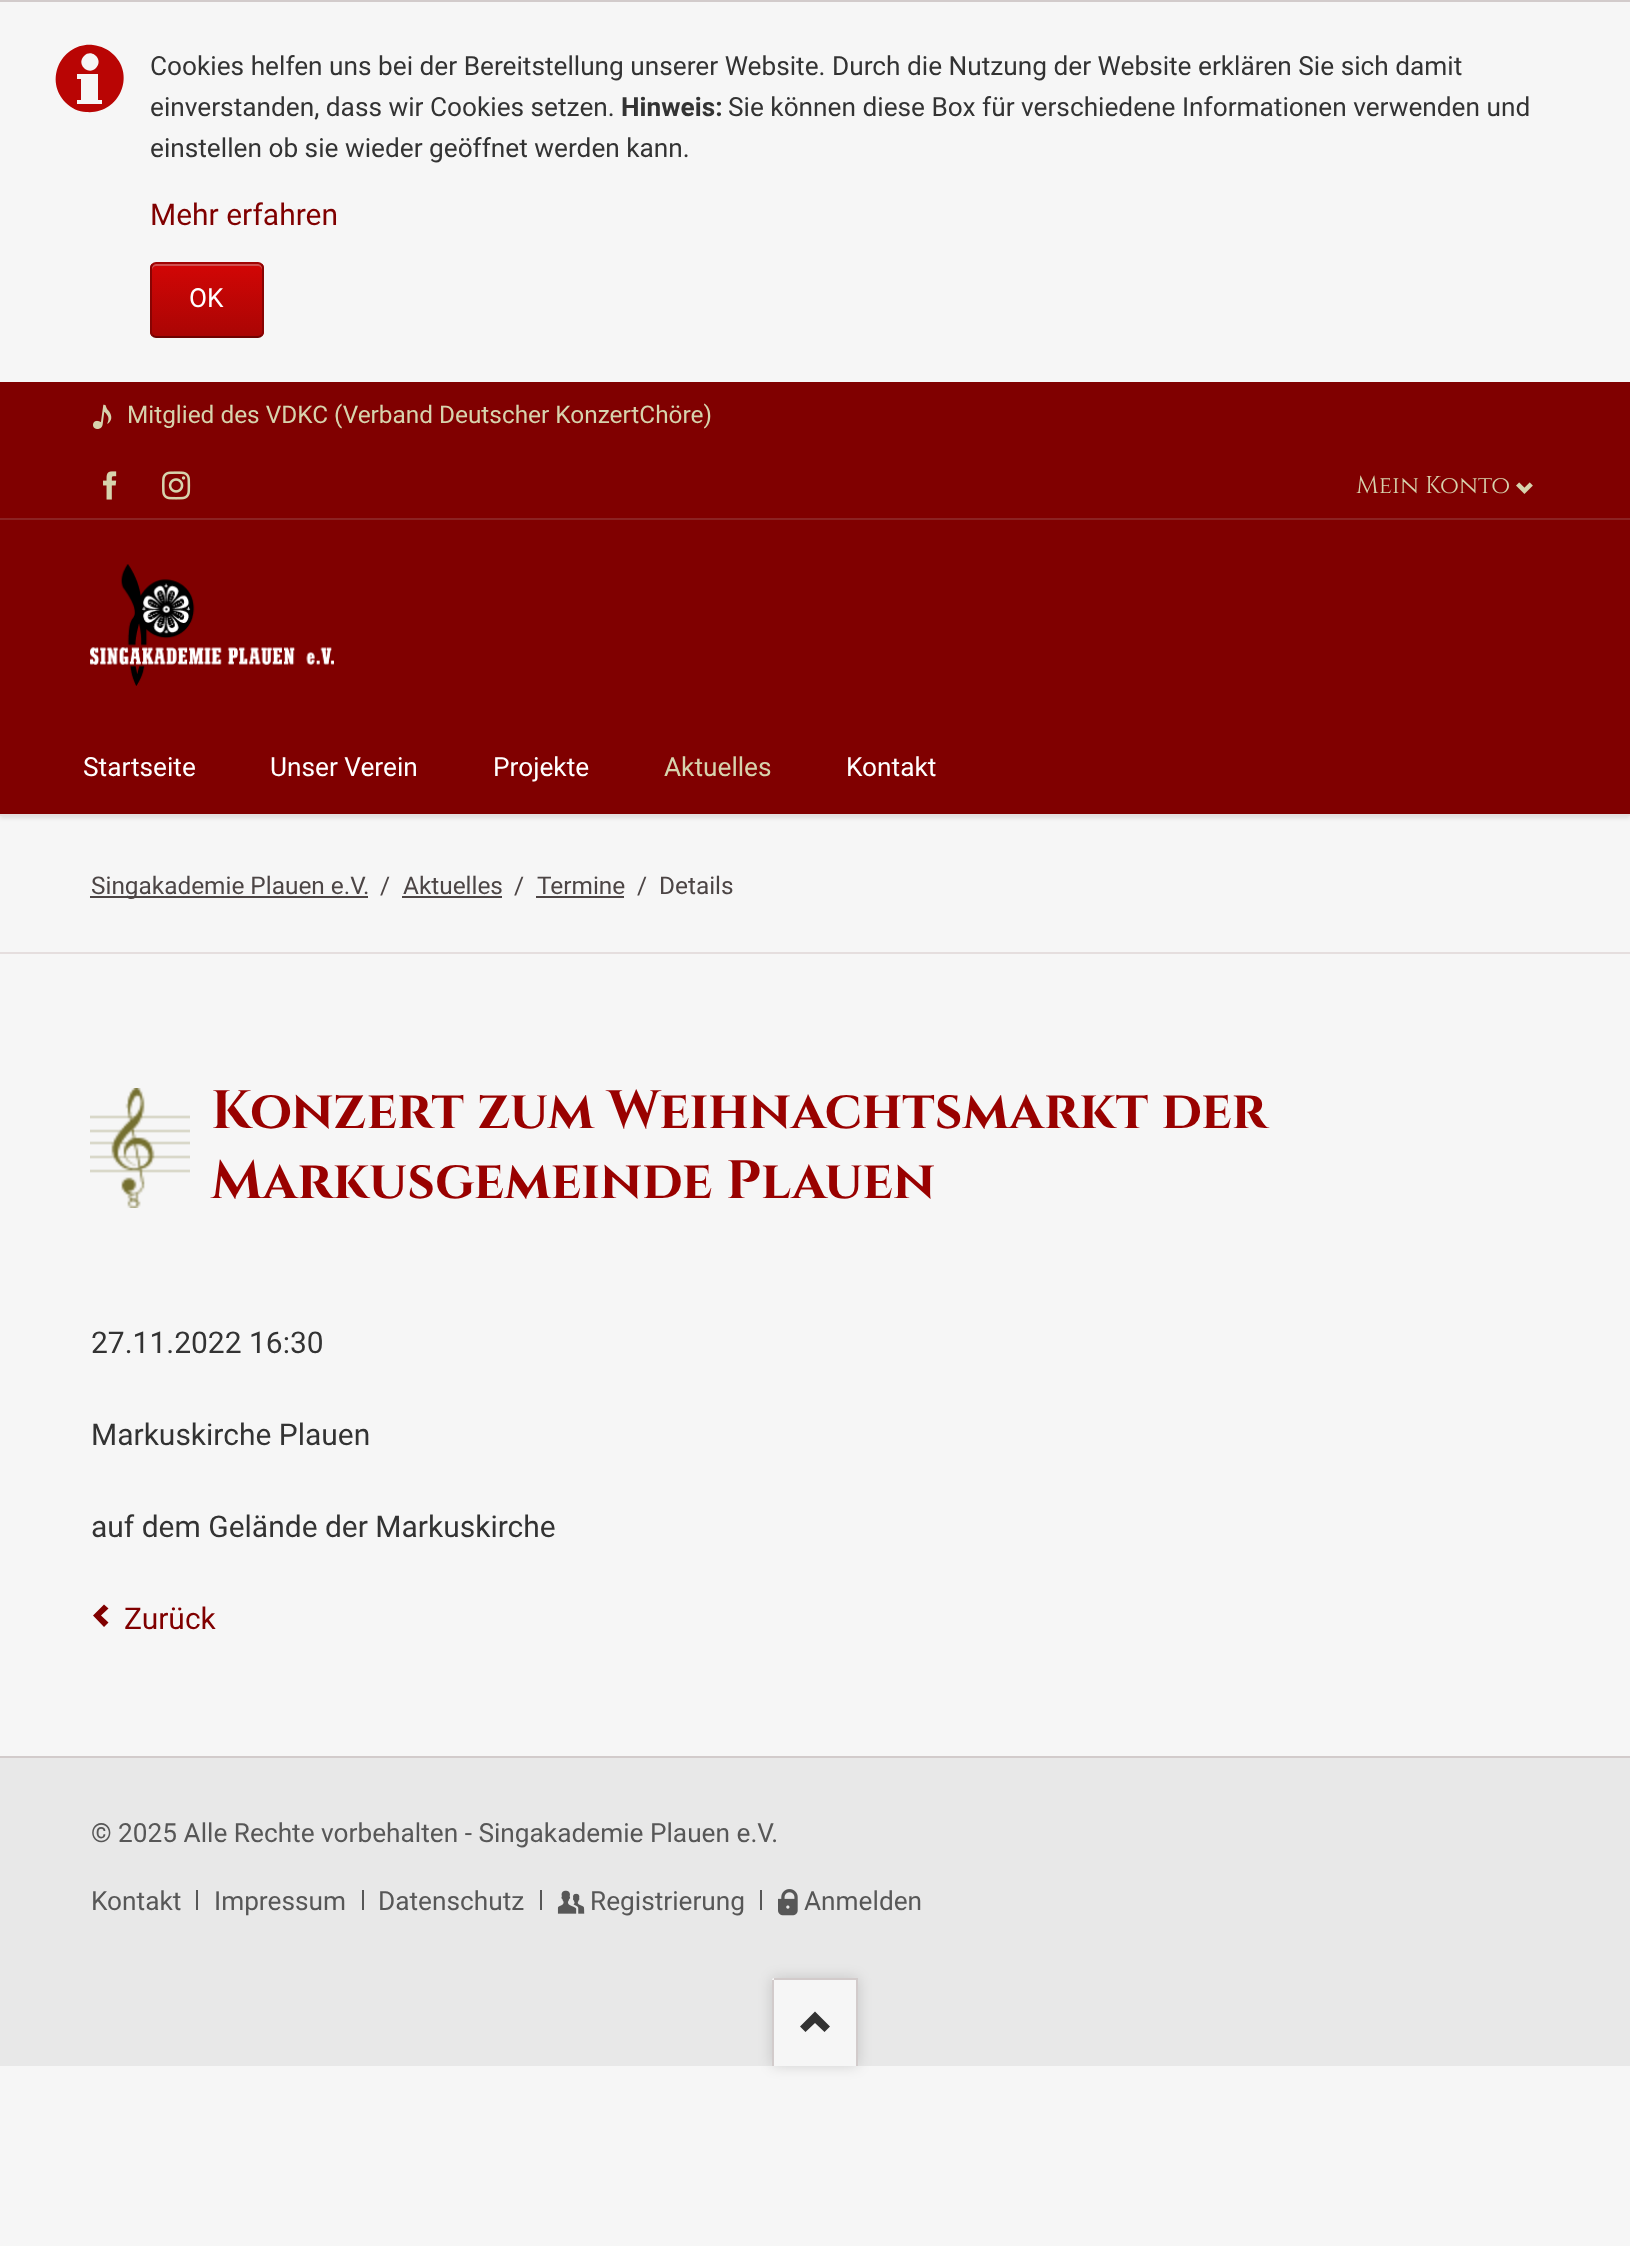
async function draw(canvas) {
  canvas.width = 1630
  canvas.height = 2246
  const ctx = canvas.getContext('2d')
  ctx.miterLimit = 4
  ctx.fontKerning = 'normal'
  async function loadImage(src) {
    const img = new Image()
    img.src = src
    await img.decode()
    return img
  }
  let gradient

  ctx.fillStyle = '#f6f6f6'
  ctx.fillRect(0, 0, 1630, 2246)
  ctx.fillStyle = '#d2cbcb'
  ctx.fillRect(0, 0, 1630, 2)
  ctx.fillStyle = '#b90504'
  ctx.beginPath()
  ctx.moveTo(114, 55)
  ctx.bezierCurveTo(108, 49, 101, 46, 93, 45)
  ctx.bezierCurveTo(62, 42, 43, 80, 66, 103)
  ctx.bezierCurveTo(71, 108, 79, 112, 86, 112)
  ctx.bezierCurveTo(118, 115, 136, 77, 114, 55)
  ctx.closePath()
  ctx.moveTo(84, 56)
  ctx.bezierCurveTo(92, 48, 104, 60, 96, 68)
  ctx.bezierCurveTo(88, 76, 76, 64, 84, 56)
  ctx.closePath()
  ctx.moveTo(102, 104)
  ctx.lineTo(77, 104)
  ctx.lineTo(77, 100)
  ctx.lineTo(81, 100)
  ctx.lineTo(81, 79)
  ctx.lineTo(77, 79)
  ctx.lineTo(77, 74)
  ctx.lineTo(98, 74)
  ctx.lineTo(98, 100)
  ctx.lineTo(102, 100)
  ctx.closePath()
  ctx.fill()
  ctx.font = '26.25px Roboto'
  ctx.fillStyle = '#333'
  ctx.fillText('Cookies helfen uns bei der Bereitstellung unserer Website. Durch die Nutzung der Website erklären Sie sich damit', 150, 75)
  ctx.fillText('einverstanden, dass wir Cookies setzen.', 150, 116)
  ctx.font = 'bold 26.25px Roboto'
  ctx.fillText('Hinweis:', 621, 116)
  ctx.font = '26.25px Roboto'
  ctx.fillText('Sie können diese Box für verschiedene Informationen verwenden und', 728, 116)
  ctx.fillText('einstellen ob sie wieder geöffnet werden kann.', 150, 157)
  ctx.font = '30px Roboto'
  ctx.fillStyle = '#800000'
  ctx.fillText('Mehr erfahren', 150, 225)
  ctx.save()
  ctx.beginPath()
  ctx.roundRect(150, 262, 114, 76, 6)
  ctx.clip()
  gradient = ctx.createLinearGradient(207, 264, 207, 336)
  gradient.addColorStop(0, '#d20605')
  gradient.addColorStop(1, '#aa0504')
  ctx.fillStyle = gradient
  ctx.fillRect(150, 264, 114, 72)
  ctx.restore()
  ctx.fillStyle = '#ce504f'
  ctx.beginPath()
  ctx.moveTo(156, 266)
  ctx.lineTo(258, 266)
  ctx.bezierCurveTo(260, 266, 262, 268, 262, 270)
  ctx.lineTo(262, 268)
  ctx.bezierCurveTo(262, 266, 260, 264, 258, 264)
  ctx.lineTo(156, 264)
  ctx.bezierCurveTo(154, 264, 152, 266, 152, 268)
  ctx.lineTo(152, 270)
  ctx.bezierCurveTo(152, 268, 154, 266, 156, 266)
  ctx.closePath()
  ctx.fill()
  ctx.beginPath()
  ctx.moveTo(152.5, 264.5)
  ctx.bezierCurveTo(153.5, 263.5, 154.5, 263, 156, 263)
  ctx.lineTo(258, 263)
  ctx.bezierCurveTo(259.5, 263, 260.5, 263.5, 261.5, 264.5)
  ctx.strokeStyle = '#a00403'
  ctx.lineWidth = 2
  ctx.stroke()
  ctx.beginPath()
  ctx.moveTo(261.5, 264.5)
  ctx.bezierCurveTo(262.5, 265.5, 263, 266.5, 263, 268)
  ctx.lineTo(263, 332)
  ctx.bezierCurveTo(263, 333.5, 262.5, 334.5, 261.5, 335.5)
  ctx.strokeStyle = '#870403'
  ctx.stroke()
  ctx.beginPath()
  ctx.moveTo(261.5, 335.5)
  ctx.bezierCurveTo(260.5, 336.5, 259.5, 337, 258, 337)
  ctx.lineTo(156, 337)
  ctx.bezierCurveTo(154.5, 337, 153.5, 336.5, 152.5, 335.5)
  ctx.strokeStyle = '#6e0302'
  ctx.stroke()
  ctx.beginPath()
  ctx.moveTo(152.5, 335.5)
  ctx.bezierCurveTo(151.5, 334.5, 151, 333.5, 151, 332)
  ctx.lineTo(151, 268)
  ctx.bezierCurveTo(151, 266.5, 151.5, 265.5, 152.5, 264.5)
  ctx.strokeStyle = '#870403'
  ctx.stroke()
  ctx.font = '26.25px Roboto'
  ctx.fillStyle = '#fff'
  ctx.fillText('OK', 189, 307)
  ctx.fillStyle = '#800000'
  ctx.fillRect(0, 382, 1630, 136)
  ctx.fillStyle = '#8d2323'
  ctx.fillRect(0, 518, 1630, 2)
  ctx.drawImage(await loadImage('image0.png'), 93, 404, 19, 25)
  ctx.font = '24.4px Roboto'
  ctx.fillStyle = '#d7d3ad'
  ctx.fillText('Mitglied des VDKC (Verband Deutscher KonzertChöre)', 127, 423)
  ctx.drawImage(await loadImage('image1.png'), 103, 471, 14, 29)
  ctx.drawImage(await loadImage('image2.png'), 162, 471, 29, 29)
  ctx.font = '24.4px Cinzel'
  ctx.fillText('Mein Konto', 1356, 493)
  ctx.drawImage(await loadImage('image3.png'), 1516, 482, 17, 12)
  ctx.fillStyle = '#0000001a'
  ctx.filter = 'blur(2px)'
  ctx.beginPath()
  ctx.rect(0, 522, 1630, 296)
  ctx.fill()
  ctx.filter = 'none'
  ctx.fillStyle = '#800000'
  ctx.fillRect(0, 520, 1630, 294)
  ctx.fillStyle = '#e5dede'
  ctx.fillRect(0, 814, 1630, 2)
  ctx.drawImage(await loadImage('image4.png'), 90, 564, 244, 122)
  ctx.font = '26.25px Roboto'
  ctx.fillStyle = '#fff'
  ctx.fillText('Startseite', 83, 776)
  ctx.fillText('Unser Verein', 270, 776)
  ctx.fillText('Projekte', 493, 776)
  ctx.fillStyle = '#d7d3ad'
  ctx.fillText('Aktuelles', 664, 776)
  ctx.fillStyle = '#fff'
  ctx.fillText('Kontakt', 846, 776)
  ctx.fillStyle = '#e5dede'
  ctx.fillRect(0, 952, 1630, 2)
  ctx.fillStyle = '#4c4545'
  ctx.fillRect(90, 896, 278, 2)
  ctx.font = '24.4px Roboto'
  ctx.fillText('Singakademie Plauen e.V.', 91, 894)
  ctx.fillText('/', 380, 894)
  ctx.fillText('Aktuelles', 403, 894)
  ctx.fillRect(402, 896, 100, 2)
  ctx.fillText('/', 514, 894)
  ctx.fillText('Termine', 537, 894)
  ctx.fillRect(536, 896, 88, 2)
  ctx.fillText('/', 637, 894)
  ctx.fillText('Details', 659, 894)
  ctx.drawImage(await loadImage('image5.png'), 90, 1088, 100, 120)
  ctx.font = 'bold 54px Cinzel'
  ctx.fillStyle = '#990100'
  ctx.fillText('Konzert zum Weihnachtsmarkt der', 211, 1128)
  ctx.fillText('Markusgemeinde Plauen', 211, 1198)
  ctx.font = '30px Roboto'
  ctx.fillStyle = '#333'
  ctx.fillText('27.11.2022 16:30', 91, 1353)
  ctx.fillText('Markuskirche Plauen', 91, 1445)
  ctx.fillText('auf dem Gelände der Markuskirche', 91, 1537)
  ctx.fillStyle = '#800000'
  ctx.beginPath()
  ctx.moveTo(104, 1627)
  ctx.lineTo(108.5, 1622.5)
  ctx.lineTo(101, 1615.5)
  ctx.lineTo(108.5, 1608.5)
  ctx.lineTo(104, 1604.5)
  ctx.lineTo(93, 1615.5)
  ctx.closePath()
  ctx.fill()
  ctx.fillText('Zurück', 124, 1629)
  ctx.fillStyle = '#e8e8e8'
  ctx.fillRect(0, 1758, 1630, 308)
  ctx.fillStyle = '#d2cbcb'
  ctx.fillRect(0, 1756, 1630, 2)
  ctx.font = '26.25px Roboto'
  ctx.fillStyle = '#575757'
  ctx.fillText('© 2025 Alle Rechte vorbehalten - Singakademie Plauen e.V.', 91, 1842)
  ctx.fillText('Kontakt', 91, 1910)
  ctx.fillRect(196, 1890, 2, 20)
  ctx.fillText('Impressum', 214, 1910)
  ctx.fillRect(362, 1890, 2, 20)
  ctx.fillText('Datenschutz', 378, 1910)
  ctx.fillRect(540, 1890, 2, 20)
  ctx.drawImage(await loadImage('image6.png'), 557, 1890, 28, 24)
  ctx.fillText('Registrierung', 590, 1910)
  ctx.fillRect(760, 1890, 2, 20)
  ctx.drawImage(await loadImage('image7.png'), 778, 1889, 20, 27)
  ctx.fillText('Anmelden', 804, 1910)
  ctx.fillStyle = '#00000026'
  ctx.filter = 'blur(7px)'
  ctx.beginPath()
  ctx.roundRect(772, 1978, 86, 88, 2)
  ctx.fill()
  ctx.filter = 'none'
  ctx.fillStyle = '#f6f6f6'
  ctx.beginPath()
  ctx.roundRect(772, 1978, 86, 88, [2, 2, 0, 0])
  ctx.fill()
  ctx.fillStyle = '#d2cbcb'
  ctx.fillRect(774, 1978, 84, 2)
  ctx.fillRect(856, 1980, 2, 86)
  ctx.fillRect(772, 1980, 2, 86)
  ctx.fillStyle = '#333'
  ctx.beginPath()
  ctx.moveTo(800, 2026.5)
  ctx.lineTo(805.5, 2032)
  ctx.lineTo(815, 2023)
  ctx.lineTo(824.5, 2032)
  ctx.lineTo(830, 2026.5)
  ctx.lineTo(815, 2011.5)
  ctx.closePath()
  ctx.fill()
}

draw(document.querySelector('canvas'))
